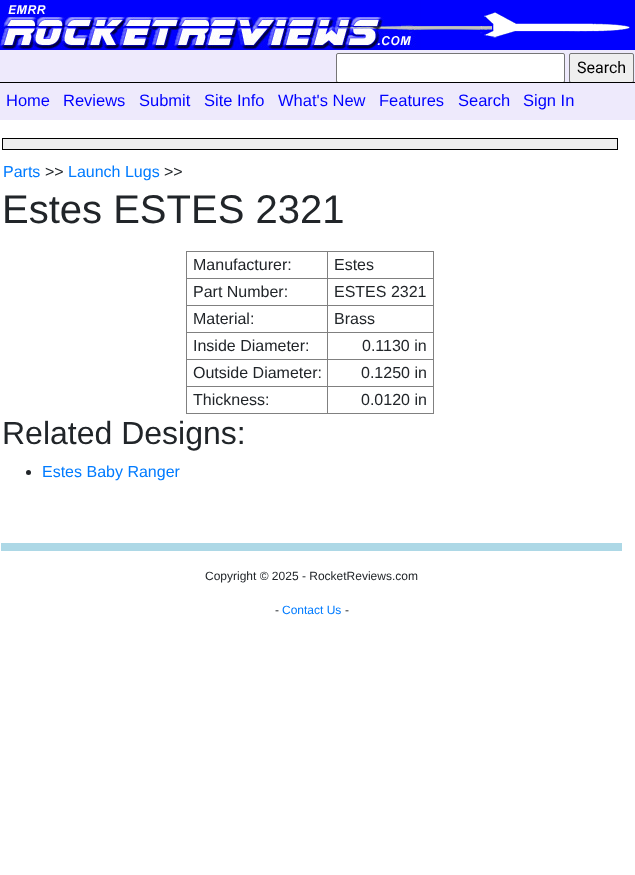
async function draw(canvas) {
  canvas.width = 635
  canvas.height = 875
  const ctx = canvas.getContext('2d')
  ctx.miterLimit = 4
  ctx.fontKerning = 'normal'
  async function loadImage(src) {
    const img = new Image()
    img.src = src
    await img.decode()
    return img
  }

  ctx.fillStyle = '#fff'
  ctx.fillRect(0, 0, 635, 875)
  ctx.fillStyle = '#00f'
  ctx.fillRect(421, 0, 214, 50)
  ctx.drawImage(await loadImage('image0.png'), 421, 26, 59, 4)
  ctx.fillStyle = '#eeeafc'
  ctx.fillRect(0, 50, 635, 32)
  ctx.drawImage(await loadImage('image1.png'), 0, 0, 421, 50)
  ctx.drawImage(await loadImage('image2.png'), 480, 12, 155, 26)
  ctx.fillStyle = '#fff'
  ctx.beginPath()
  ctx.roundRect(336.5, 53.5, 228, 29, 1.5)
  ctx.fill()
  ctx.strokeStyle = '#767676'
  ctx.stroke()
  ctx.fillStyle = '#efefef'
  ctx.beginPath()
  ctx.roundRect(569.5, 53.5, 64, 29, 1.5)
  ctx.fill()
  ctx.stroke()
  ctx.font = '16px Roboto'
  ctx.fillStyle = '#000'
  ctx.fillText('Search', 577, 73)
  ctx.fillRect(0, 82, 635, 1)
  ctx.fillStyle = '#eeeafc'
  ctx.fillRect(0, 83, 635, 37)
  ctx.font = '16.5px Liberation Sans'
  ctx.fillStyle = '#00f'
  ctx.fillText('Home', 6, 106)
  ctx.fillText('Reviews', 63, 106)
  ctx.fillText('Submit', 139, 106)
  ctx.fillText('Site Info', 204, 106)
  ctx.fillText('What\'s New', 278, 106)
  ctx.fillText('Features', 379, 106)
  ctx.fillText('Search', 458, 106)
  ctx.fillText('Sign In', 523, 106)
  ctx.fillStyle = '#eee'
  ctx.fillRect(3, 139, 614, 10)
  ctx.fillStyle = '#000'
  ctx.fillRect(2, 138, 616, 1)
  ctx.fillRect(617, 138, 1, 12)
  ctx.fillRect(2, 149, 616, 1)
  ctx.fillRect(2, 138, 1, 12)
  ctx.font = '16px Liberation Sans'
  ctx.fillStyle = '#007bff'
  ctx.fillText('Parts', 3, 177)
  ctx.fillStyle = '#212529'
  ctx.fillText('>>', 45, 177)
  ctx.fillStyle = '#007bff'
  ctx.fillText('Launch Lugs', 68, 177)
  ctx.fillStyle = '#212529'
  ctx.fillText('>>', 164, 177)
  ctx.font = '40px Liberation Sans'
  ctx.fillText('Estes ESTES 2321', 2, 223)
  ctx.fillStyle = '#808080'
  ctx.fillRect(186, 251, 248, 1)
  ctx.fillRect(433, 251, 1, 163)
  ctx.fillRect(186, 413, 248, 1)
  ctx.fillRect(186, 251, 1, 163)
  ctx.font = '16px Liberation Sans'
  ctx.fillStyle = '#212529'
  ctx.fillText('Manufacturer:', 193, 270)
  ctx.fillStyle = '#808080'
  ctx.fillRect(327, 278, 107, 1)
  ctx.fillRect(327, 305, 107, 1)
  ctx.fillRect(327, 332, 107, 1)
  ctx.fillRect(327, 359, 107, 1)
  ctx.fillRect(327, 386, 107, 1)
  ctx.fillRect(327, 386, 1, 28)
  ctx.fillRect(186, 386, 142, 1)
  ctx.fillRect(327, 359, 1, 28)
  ctx.fillRect(186, 359, 142, 1)
  ctx.fillRect(327, 332, 1, 28)
  ctx.fillRect(186, 332, 142, 1)
  ctx.fillRect(327, 305, 1, 28)
  ctx.fillRect(186, 305, 142, 1)
  ctx.fillRect(327, 278, 1, 28)
  ctx.fillRect(186, 278, 142, 1)
  ctx.fillRect(327, 251, 1, 28)
  ctx.fillStyle = '#212529'
  ctx.fillText('Estes', 334, 270)
  ctx.fillText('Part Number:', 193, 297)
  ctx.fillText('ESTES 2321', 334, 297)
  ctx.fillText('Material:', 193, 324)
  ctx.fillText('Brass', 334, 324)
  ctx.fillText('Inside Diameter:', 193, 351)
  ctx.fillText('0.1130 in', 362, 351)
  ctx.fillText('Outside Diameter:', 193, 378)
  ctx.fillText('0.1250 in', 361, 378)
  ctx.fillText('Thickness:', 193, 405)
  ctx.fillText('0.0120 in', 361, 405)
  ctx.font = '32px Liberation Sans'
  ctx.fillText('Related Designs:', 2, 444)
  ctx.beginPath()
  ctx.arc(28.5, 472.5, 2.5, 0, 2 * Math.PI)
  ctx.fill()
  ctx.font = '16px Liberation Sans'
  ctx.fillStyle = '#007bff'
  ctx.fillText('Estes Baby Ranger', 42, 477)
  ctx.fillStyle = '#add8e6'
  ctx.fillRect(1, 543, 621, 8)
  ctx.font = '12px Liberation Sans'
  ctx.fillStyle = '#212529'
  ctx.fillText('Copyright © 2025 - RocketReviews.com', 205, 580)
  ctx.fillText('-', 275, 614)
  ctx.fillStyle = '#007bff'
  ctx.fillText('Contact Us', 282, 614)
  ctx.fillStyle = '#212529'
  ctx.fillText('-', 345, 614)
}

draw(document.querySelector('canvas'))
